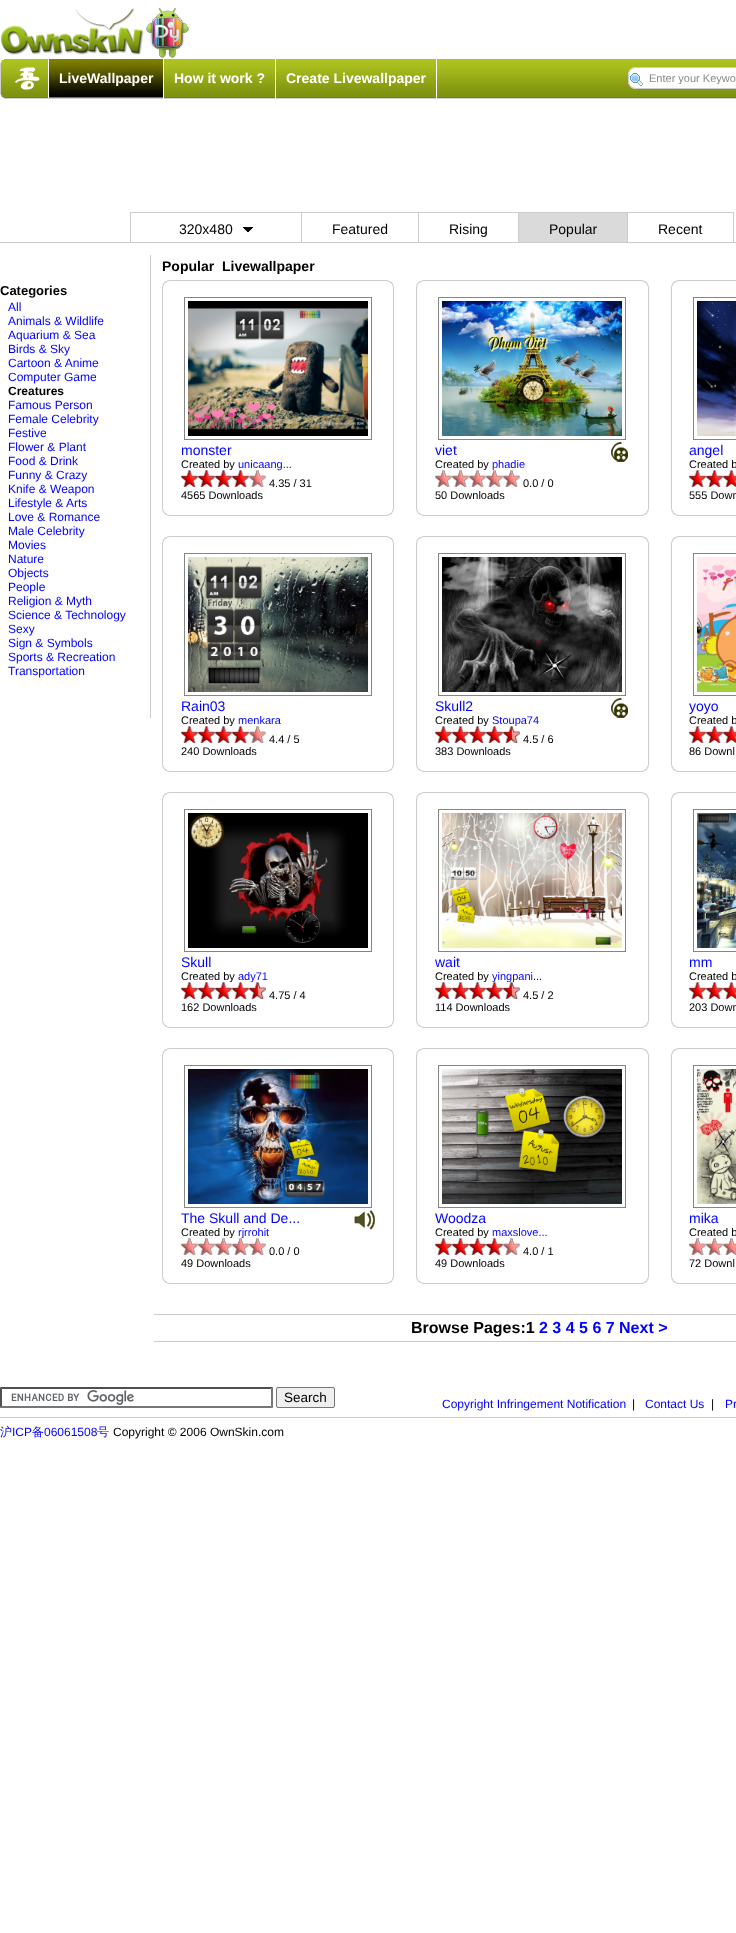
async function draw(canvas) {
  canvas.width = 736
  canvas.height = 1933
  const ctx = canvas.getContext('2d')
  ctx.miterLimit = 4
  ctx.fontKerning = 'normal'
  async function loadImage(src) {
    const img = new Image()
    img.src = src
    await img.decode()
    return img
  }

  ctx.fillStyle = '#fff'
  ctx.fillRect(0, 0, 736, 1933)
  ctx.drawImage(await loadImage('image0.png'), 1, 8, 188, 50)
  ctx.drawImage(await loadImage('image1.png'), 0, 59, 7, 40)
  ctx.drawImage(await loadImage('image2.png'), 7, 59, 729, 40)
  ctx.fillRect(48, 59, 1, 39)
  ctx.drawImage(await loadImage('image3.png'), 15, 67, 25, 23)
  ctx.fillRect(163, 59, 1, 40)
  ctx.drawImage(await loadImage('image4.png'), 49, 59, 114, 38)
  ctx.font = 'bold 14px Liberation Sans'
  ctx.fillText('LiveWallpaper', 59, 83)
  ctx.fillRect(275, 59, 1, 40)
  ctx.fillText('How it work ?', 174, 83)
  ctx.fillRect(436, 59, 1, 40)
  ctx.fillText('Create Livewallpaper', 286, 83)
  ctx.beginPath()
  ctx.roundRect(628, 67, 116, 22, 8)
  ctx.fill()
  ctx.drawImage(await loadImage('image5.png'), 630, 73, 13, 13)
  ctx.beginPath()
  ctx.roundRect(628.5, 67.5, 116, 21, 7.5)
  ctx.strokeStyle = '#ccc'
  ctx.stroke()
  ctx.save()
  ctx.beginPath()
  ctx.rect(649, 72, 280, 12)
  ctx.clip()
  ctx.font = '11px Liberation Sans'
  ctx.fillStyle = '#888'
  ctx.fillText('Enter your Keywo', 649, 82)
  ctx.restore()
  ctx.fillStyle = '#ccc'
  ctx.fillRect(0, 242, 736, 1)
  ctx.fillRect(130, 212, 604, 1)
  ctx.fillRect(301, 212, 1, 30)
  ctx.fillRect(130, 212, 1, 30)
  ctx.font = '14px Liberation Sans'
  ctx.fillStyle = '#000'
  ctx.fillText('320x480', 179, 234)
  ctx.drawImage(await loadImage('image6.png'), 243, 227, 10, 5)
  ctx.fillStyle = '#ccc'
  ctx.fillRect(418, 212, 1, 30)
  ctx.fillStyle = '#000'
  ctx.fillText('Featured', 332, 234)
  ctx.fillStyle = '#ccc'
  ctx.fillRect(518, 212, 1, 30)
  ctx.fillStyle = '#000'
  ctx.fillText('Rising', 449, 234)
  ctx.fillStyle = '#dadada'
  ctx.fillRect(519, 213, 108, 29)
  ctx.fillStyle = '#ccc'
  ctx.fillRect(627, 212, 1, 30)
  ctx.fillStyle = '#000'
  ctx.fillText('Popular', 549, 234)
  ctx.fillStyle = '#ccc'
  ctx.fillRect(733, 212, 1, 30)
  ctx.fillStyle = '#000'
  ctx.fillText('Recent', 658, 234)
  ctx.fillStyle = '#ccc'
  ctx.fillRect(150, 255, 1, 463)
  ctx.font = 'bold 13px Liberation Sans'
  ctx.fillStyle = '#000'
  ctx.fillText('Categories', 0, 295)
  ctx.font = '12px Liberation Sans'
  ctx.fillStyle = '#00f'
  ctx.fillText('All', 8, 311)
  ctx.fillText('Animals & Wildlife', 8, 325)
  ctx.fillText('Aquarium & Sea', 8, 339)
  ctx.fillText('Birds & Sky', 8, 353)
  ctx.fillText('Cartoon & Anime', 8, 367)
  ctx.fillText('Computer Game', 8, 381)
  ctx.font = 'bold 12px Liberation Sans'
  ctx.fillStyle = '#000'
  ctx.fillText('Creatures', 8, 395)
  ctx.font = '12px Liberation Sans'
  ctx.fillStyle = '#00f'
  ctx.fillText('Famous Person', 8, 409)
  ctx.fillText('Female Celebrity', 8, 423)
  ctx.fillText('Festive', 8, 437)
  ctx.fillText('Flower & Plant', 8, 451)
  ctx.fillText('Food & Drink', 8, 465)
  ctx.fillText('Funny & Crazy', 8, 479)
  ctx.fillText('Knife & Weapon', 8, 493)
  ctx.fillText('Lifestyle & Arts', 8, 507)
  ctx.fillText('Love & Romance', 8, 521)
  ctx.fillText('Male Celebrity', 8, 535)
  ctx.fillText('Movies', 8, 549)
  ctx.fillText('Nature', 8, 563)
  ctx.fillText('Objects', 8, 577)
  ctx.fillText('People', 8, 591)
  ctx.fillText('Religion & Myth', 8, 605)
  ctx.fillText('Science & Technology', 8, 619)
  ctx.fillText('Sexy', 8, 633)
  ctx.fillText('Sign & Symbols', 8, 647)
  ctx.fillText('Sports & Recreation', 8, 661)
  ctx.fillText('Transportation', 8, 675)
  ctx.font = 'bold 14px Liberation Sans'
  ctx.fillStyle = '#000'
  ctx.fillText('Popular', 162, 271)
  ctx.fillText('Livewallpaper', 222, 271)
  ctx.drawImage(await loadImage('image7.png'), 162, 280, 231, 229)
  ctx.drawImage(await loadImage('image8.png'), 387, 280, 7, 15)
  ctx.fillStyle = '#ccc'
  ctx.fillRect(393, 295, 1, 206)
  ctx.strokeStyle = '#858585'
  ctx.strokeRect(184.5, 297.5, 187, 142)
  ctx.drawImage(await loadImage('image9.png'), 188, 301, 180, 135)
  ctx.font = '14px Liberation Sans'
  ctx.fillStyle = '#00f'
  ctx.fillText('monster', 181, 455)
  ctx.font = '11px Liberation Sans'
  ctx.fillStyle = '#000'
  ctx.fillText('Created by', 181, 468)
  ctx.fillStyle = '#00f'
  ctx.fillText('unicaang...', 238, 468)
  ctx.drawImage(await loadImage('image10.png'), 181, 470, 17, 17)
  ctx.drawImage(await loadImage('image10.png'), 198, 470, 17, 17)
  ctx.drawImage(await loadImage('image10.png'), 215, 470, 17, 17)
  ctx.drawImage(await loadImage('image10.png'), 232, 470, 17, 17)
  ctx.drawImage(await loadImage('image11.png'), 249, 470, 17, 17)
  ctx.fillStyle = '#000'
  ctx.fillText('4.35 / 31', 269, 487)
  ctx.fillText('4565 Downloads', 181, 499)
  ctx.drawImage(await loadImage('image12.png'), 162, 509, 225, 7)
  ctx.drawImage(await loadImage('image13.png'), 387, 501, 7, 15)
  ctx.drawImage(await loadImage('image14.png'), 416, 280, 232, 229)
  ctx.drawImage(await loadImage('image8.png'), 642, 280, 7, 15)
  ctx.fillStyle = '#ccc'
  ctx.fillRect(648, 295, 1, 206)
  ctx.strokeRect(438.5, 297.5, 187, 142)
  ctx.drawImage(await loadImage('image15.png'), 442, 301, 180, 135)
  ctx.font = '14px Liberation Sans'
  ctx.fillStyle = '#00f'
  ctx.fillText('viet', 435, 455)
  ctx.font = '11px Liberation Sans'
  ctx.fillStyle = '#000'
  ctx.fillText('Created by', 435, 468)
  ctx.fillStyle = '#00f'
  ctx.fillText('phadie', 492, 468)
  ctx.drawImage(await loadImage('image11.png'), 435, 470, 17, 17)
  ctx.drawImage(await loadImage('image11.png'), 452, 470, 17, 17)
  ctx.drawImage(await loadImage('image11.png'), 469, 470, 17, 17)
  ctx.drawImage(await loadImage('image11.png'), 486, 470, 17, 17)
  ctx.drawImage(await loadImage('image11.png'), 503, 470, 17, 17)
  ctx.fillStyle = '#000'
  ctx.fillText('0.0 / 0', 523, 487)
  ctx.fillText('50 Downloads', 435, 499)
  ctx.drawImage(await loadImage('image16.png'), 611, 442, 17, 20)
  ctx.drawImage(await loadImage('image17.png'), 416, 509, 226, 7)
  ctx.drawImage(await loadImage('image13.png'), 642, 501, 7, 15)
  ctx.drawImage(await loadImage('image18.png'), 671, 280, 65, 229)
  ctx.strokeRect(693.5, 297.5, 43, 142)
  ctx.drawImage(await loadImage('image19.png'), 697, 301, 39, 135)
  ctx.font = '14px Liberation Sans'
  ctx.fillStyle = '#00f'
  ctx.fillText('angel', 689, 455)
  ctx.font = '11px Liberation Sans'
  ctx.fillStyle = '#000'
  ctx.fillText('Created b', 689, 468)
  ctx.drawImage(await loadImage('image10.png'), 689, 470, 17, 17)
  ctx.drawImage(await loadImage('image10.png'), 706, 470, 17, 17)
  ctx.drawImage(await loadImage('image20.png'), 723, 470, 13, 17)
  ctx.fillText('555 Down', 689, 499)
  ctx.drawImage(await loadImage('image21.png'), 671, 509, 65, 7)
  ctx.drawImage(await loadImage('image7.png'), 162, 536, 231, 229)
  ctx.drawImage(await loadImage('image8.png'), 387, 536, 7, 15)
  ctx.fillStyle = '#ccc'
  ctx.fillRect(393, 551, 1, 206)
  ctx.strokeRect(184.5, 553.5, 187, 142)
  ctx.drawImage(await loadImage('image22.png'), 188, 557, 180, 135)
  ctx.font = '14px Liberation Sans'
  ctx.fillStyle = '#00f'
  ctx.fillText('Rain03', 181, 711)
  ctx.font = '11px Liberation Sans'
  ctx.fillStyle = '#000'
  ctx.fillText('Created by', 181, 724)
  ctx.fillStyle = '#00f'
  ctx.fillText('menkara', 238, 724)
  ctx.drawImage(await loadImage('image10.png'), 181, 726, 17, 17)
  ctx.drawImage(await loadImage('image10.png'), 198, 726, 17, 17)
  ctx.drawImage(await loadImage('image10.png'), 215, 726, 17, 17)
  ctx.drawImage(await loadImage('image10.png'), 232, 726, 17, 17)
  ctx.drawImage(await loadImage('image11.png'), 249, 726, 17, 17)
  ctx.fillStyle = '#000'
  ctx.fillText('4.4 / 5', 269, 743)
  ctx.fillText('240 Downloads', 181, 755)
  ctx.drawImage(await loadImage('image12.png'), 162, 765, 225, 7)
  ctx.drawImage(await loadImage('image13.png'), 387, 757, 7, 15)
  ctx.drawImage(await loadImage('image14.png'), 416, 536, 232, 229)
  ctx.drawImage(await loadImage('image8.png'), 642, 536, 7, 15)
  ctx.fillStyle = '#ccc'
  ctx.fillRect(648, 551, 1, 206)
  ctx.strokeRect(438.5, 553.5, 187, 142)
  ctx.drawImage(await loadImage('image23.png'), 442, 557, 180, 135)
  ctx.font = '14px Liberation Sans'
  ctx.fillStyle = '#00f'
  ctx.fillText('Skull2', 435, 711)
  ctx.font = '11px Liberation Sans'
  ctx.fillStyle = '#000'
  ctx.fillText('Created by', 435, 724)
  ctx.fillStyle = '#00f'
  ctx.fillText('Stoupa74', 492, 724)
  ctx.drawImage(await loadImage('image10.png'), 435, 726, 17, 17)
  ctx.drawImage(await loadImage('image10.png'), 452, 726, 17, 17)
  ctx.drawImage(await loadImage('image10.png'), 469, 726, 17, 17)
  ctx.drawImage(await loadImage('image10.png'), 486, 726, 17, 17)
  ctx.drawImage(await loadImage('image24.png'), 503, 726, 17, 17)
  ctx.fillStyle = '#000'
  ctx.fillText('4.5 / 6', 523, 743)
  ctx.fillText('383 Downloads', 435, 755)
  ctx.drawImage(await loadImage('image16.png'), 611, 698, 17, 20)
  ctx.drawImage(await loadImage('image17.png'), 416, 765, 226, 7)
  ctx.drawImage(await loadImage('image13.png'), 642, 757, 7, 15)
  ctx.drawImage(await loadImage('image18.png'), 671, 536, 65, 229)
  ctx.strokeRect(693.5, 553.5, 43, 142)
  ctx.drawImage(await loadImage('image25.png'), 697, 557, 39, 135)
  ctx.font = '14px Liberation Sans'
  ctx.fillStyle = '#00f'
  ctx.fillText('yoyo', 689, 711)
  ctx.font = '11px Liberation Sans'
  ctx.fillStyle = '#000'
  ctx.fillText('Created b', 689, 724)
  ctx.drawImage(await loadImage('image10.png'), 689, 726, 17, 17)
  ctx.drawImage(await loadImage('image10.png'), 706, 726, 17, 17)
  ctx.drawImage(await loadImage('image20.png'), 723, 726, 13, 17)
  ctx.fillText('86 Downl', 689, 755)
  ctx.drawImage(await loadImage('image21.png'), 671, 765, 65, 7)
  ctx.drawImage(await loadImage('image7.png'), 162, 792, 231, 229)
  ctx.drawImage(await loadImage('image8.png'), 387, 792, 7, 15)
  ctx.fillStyle = '#ccc'
  ctx.fillRect(393, 807, 1, 206)
  ctx.strokeRect(184.5, 809.5, 187, 142)
  ctx.drawImage(await loadImage('image26.png'), 188, 813, 180, 135)
  ctx.font = '14px Liberation Sans'
  ctx.fillStyle = '#00f'
  ctx.fillText('Skull', 181, 967)
  ctx.font = '11px Liberation Sans'
  ctx.fillStyle = '#000'
  ctx.fillText('Created by', 181, 980)
  ctx.fillStyle = '#00f'
  ctx.fillText('ady71', 238, 980)
  ctx.drawImage(await loadImage('image10.png'), 181, 982, 17, 17)
  ctx.drawImage(await loadImage('image10.png'), 198, 982, 17, 17)
  ctx.drawImage(await loadImage('image10.png'), 215, 982, 17, 17)
  ctx.drawImage(await loadImage('image10.png'), 232, 982, 17, 17)
  ctx.drawImage(await loadImage('image24.png'), 249, 982, 17, 17)
  ctx.fillStyle = '#000'
  ctx.fillText('4.75 / 4', 269, 999)
  ctx.fillText('162 Downloads', 181, 1011)
  ctx.drawImage(await loadImage('image12.png'), 162, 1021, 225, 7)
  ctx.drawImage(await loadImage('image13.png'), 387, 1013, 7, 15)
  ctx.drawImage(await loadImage('image14.png'), 416, 792, 232, 229)
  ctx.drawImage(await loadImage('image8.png'), 642, 792, 7, 15)
  ctx.fillStyle = '#ccc'
  ctx.fillRect(648, 807, 1, 206)
  ctx.strokeRect(438.5, 809.5, 187, 142)
  ctx.drawImage(await loadImage('image27.png'), 442, 813, 180, 135)
  ctx.font = '14px Liberation Sans'
  ctx.fillStyle = '#00f'
  ctx.fillText('wait', 435, 967)
  ctx.font = '11px Liberation Sans'
  ctx.fillStyle = '#000'
  ctx.fillText('Created by', 435, 980)
  ctx.fillStyle = '#00f'
  ctx.fillText('yingpani...', 492, 980)
  ctx.drawImage(await loadImage('image10.png'), 435, 982, 17, 17)
  ctx.drawImage(await loadImage('image10.png'), 452, 982, 17, 17)
  ctx.drawImage(await loadImage('image10.png'), 469, 982, 17, 17)
  ctx.drawImage(await loadImage('image10.png'), 486, 982, 17, 17)
  ctx.drawImage(await loadImage('image24.png'), 503, 982, 17, 17)
  ctx.fillStyle = '#000'
  ctx.fillText('4.5 / 2', 523, 999)
  ctx.fillText('114 Downloads', 435, 1011)
  ctx.drawImage(await loadImage('image17.png'), 416, 1021, 226, 7)
  ctx.drawImage(await loadImage('image13.png'), 642, 1013, 7, 15)
  ctx.drawImage(await loadImage('image18.png'), 671, 792, 65, 229)
  ctx.strokeRect(693.5, 809.5, 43, 142)
  ctx.drawImage(await loadImage('image28.png'), 697, 813, 39, 135)
  ctx.font = '14px Liberation Sans'
  ctx.fillStyle = '#00f'
  ctx.fillText('mm', 689, 967)
  ctx.font = '11px Liberation Sans'
  ctx.fillStyle = '#000'
  ctx.fillText('Created b', 689, 980)
  ctx.drawImage(await loadImage('image10.png'), 689, 982, 17, 17)
  ctx.drawImage(await loadImage('image10.png'), 706, 982, 17, 17)
  ctx.drawImage(await loadImage('image20.png'), 723, 982, 13, 17)
  ctx.fillText('203 Down', 689, 1011)
  ctx.drawImage(await loadImage('image21.png'), 671, 1021, 65, 7)
  ctx.drawImage(await loadImage('image7.png'), 162, 1048, 231, 229)
  ctx.drawImage(await loadImage('image8.png'), 387, 1048, 7, 15)
  ctx.fillStyle = '#ccc'
  ctx.fillRect(393, 1063, 1, 206)
  ctx.strokeRect(184.5, 1065.5, 187, 142)
  ctx.drawImage(await loadImage('image29.png'), 188, 1069, 180, 135)
  ctx.font = '14px Liberation Sans'
  ctx.fillStyle = '#00f'
  ctx.fillText('The Skull and De...', 181, 1223)
  ctx.font = '11px Liberation Sans'
  ctx.fillStyle = '#000'
  ctx.fillText('Created by', 181, 1236)
  ctx.fillStyle = '#00f'
  ctx.fillText('rjrrohit', 238, 1236)
  ctx.drawImage(await loadImage('image11.png'), 181, 1238, 17, 17)
  ctx.drawImage(await loadImage('image11.png'), 198, 1238, 17, 17)
  ctx.drawImage(await loadImage('image11.png'), 215, 1238, 17, 17)
  ctx.drawImage(await loadImage('image11.png'), 232, 1238, 17, 17)
  ctx.drawImage(await loadImage('image11.png'), 249, 1238, 17, 17)
  ctx.fillStyle = '#000'
  ctx.fillText('0.0 / 0', 269, 1255)
  ctx.fillText('49 Downloads', 181, 1267)
  ctx.drawImage(await loadImage('image30.png'), 354, 1210, 21, 20)
  ctx.drawImage(await loadImage('image12.png'), 162, 1277, 225, 7)
  ctx.drawImage(await loadImage('image13.png'), 387, 1269, 7, 15)
  ctx.drawImage(await loadImage('image14.png'), 416, 1048, 232, 229)
  ctx.drawImage(await loadImage('image8.png'), 642, 1048, 7, 15)
  ctx.fillStyle = '#ccc'
  ctx.fillRect(648, 1063, 1, 206)
  ctx.strokeRect(438.5, 1065.5, 187, 142)
  ctx.drawImage(await loadImage('image31.png'), 442, 1069, 180, 135)
  ctx.font = '14px Liberation Sans'
  ctx.fillStyle = '#00f'
  ctx.fillText('Woodza', 435, 1223)
  ctx.font = '11px Liberation Sans'
  ctx.fillStyle = '#000'
  ctx.fillText('Created by', 435, 1236)
  ctx.fillStyle = '#00f'
  ctx.fillText('maxslove...', 492, 1236)
  ctx.drawImage(await loadImage('image10.png'), 435, 1238, 17, 17)
  ctx.drawImage(await loadImage('image10.png'), 452, 1238, 17, 17)
  ctx.drawImage(await loadImage('image10.png'), 469, 1238, 17, 17)
  ctx.drawImage(await loadImage('image10.png'), 486, 1238, 17, 17)
  ctx.drawImage(await loadImage('image11.png'), 503, 1238, 17, 17)
  ctx.fillStyle = '#000'
  ctx.fillText('4.0 / 1', 523, 1255)
  ctx.fillText('49 Downloads', 435, 1267)
  ctx.drawImage(await loadImage('image17.png'), 416, 1277, 226, 7)
  ctx.drawImage(await loadImage('image13.png'), 642, 1269, 7, 15)
  ctx.drawImage(await loadImage('image18.png'), 671, 1048, 65, 229)
  ctx.strokeRect(693.5, 1065.5, 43, 142)
  ctx.drawImage(await loadImage('image32.png'), 697, 1069, 39, 135)
  ctx.font = '14px Liberation Sans'
  ctx.fillStyle = '#00f'
  ctx.fillText('mika', 689, 1223)
  ctx.font = '11px Liberation Sans'
  ctx.fillStyle = '#000'
  ctx.fillText('Created b', 689, 1236)
  ctx.drawImage(await loadImage('image11.png'), 689, 1238, 17, 17)
  ctx.drawImage(await loadImage('image11.png'), 706, 1238, 17, 17)
  ctx.drawImage(await loadImage('image33.png'), 723, 1238, 13, 17)
  ctx.fillText('72 Downl', 689, 1267)
  ctx.drawImage(await loadImage('image21.png'), 671, 1277, 65, 7)
  ctx.fillStyle = '#ccc'
  ctx.fillRect(154, 1314, 582, 1)
  ctx.fillRect(154, 1341, 582, 1)
  ctx.font = 'bold 16px Liberation Sans'
  ctx.fillStyle = '#000'
  ctx.fillText('Browse Pages:1', 411, 1333)
  ctx.fillStyle = '#00f'
  ctx.fillText('2 3 4 5 6 7 Next >', 539, 1333)
  ctx.drawImage(await loadImage('image34.png'), 11, 1390, 123, 15)
  ctx.fillStyle = '#4f4f4f'
  ctx.beginPath()
  ctx.moveTo(0, 1387)
  ctx.lineTo(273, 1387)
  ctx.lineTo(271, 1389)
  ctx.lineTo(2, 1389)
  ctx.closePath()
  ctx.fill()
  ctx.fillStyle = '#767676'
  ctx.beginPath()
  ctx.moveTo(273, 1387)
  ctx.lineTo(273, 1408)
  ctx.lineTo(271, 1406)
  ctx.lineTo(271, 1389)
  ctx.closePath()
  ctx.fill()
  ctx.beginPath()
  ctx.moveTo(273, 1408)
  ctx.lineTo(0, 1408)
  ctx.lineTo(2, 1406)
  ctx.lineTo(271, 1406)
  ctx.closePath()
  ctx.fill()
  ctx.fillStyle = '#4f4f4f'
  ctx.beginPath()
  ctx.moveTo(0, 1408)
  ctx.lineTo(0, 1387)
  ctx.lineTo(2, 1389)
  ctx.lineTo(2, 1406)
  ctx.closePath()
  ctx.fill()
  ctx.fillStyle = '#efefef'
  ctx.beginPath()
  ctx.roundRect(276.5, 1387.5, 58, 20, 1.5)
  ctx.fill()
  ctx.strokeStyle = '#767676'
  ctx.stroke()
  ctx.font = '13.5px Liberation Sans'
  ctx.fillStyle = '#000'
  ctx.fillText('Search', 284, 1402)
  ctx.fillStyle = '#ccc'
  ctx.fillRect(0, 1417, 736, 1)
  ctx.font = '12px Liberation Sans'
  ctx.fillStyle = '#00f'
  ctx.fillText('Copyright Infringement Notification', 442, 1408)
  ctx.fillStyle = '#000'
  ctx.fillText('|', 632, 1408)
  ctx.fillStyle = '#00f'
  ctx.fillText('Contact Us', 645, 1408)
  ctx.fillStyle = '#000'
  ctx.fillText('|', 711, 1408)
  ctx.fillStyle = '#00f'
  ctx.fillText('Pr', 725, 1408)
  ctx.font = '500 12px WenQuanYi Zen Hei'
  ctx.fillText('沪', 0, 1436)
  ctx.font = '12px Liberation Sans'
  ctx.fillText('ICP', 12, 1436)
  ctx.font = '500 12px WenQuanYi Zen Hei'
  ctx.fillText('备', 32, 1436)
  ctx.font = '12px Liberation Sans'
  ctx.fillText('06061508', 44, 1436)
  ctx.font = '500 12px WenQuanYi Zen Hei'
  ctx.fillText('号', 97, 1436)
  ctx.font = '12px Liberation Sans'
  ctx.fillStyle = '#000'
  ctx.fillText('Copyright © 2006 OwnSkin.com', 113, 1436)
}

draw(document.querySelector('canvas'))
